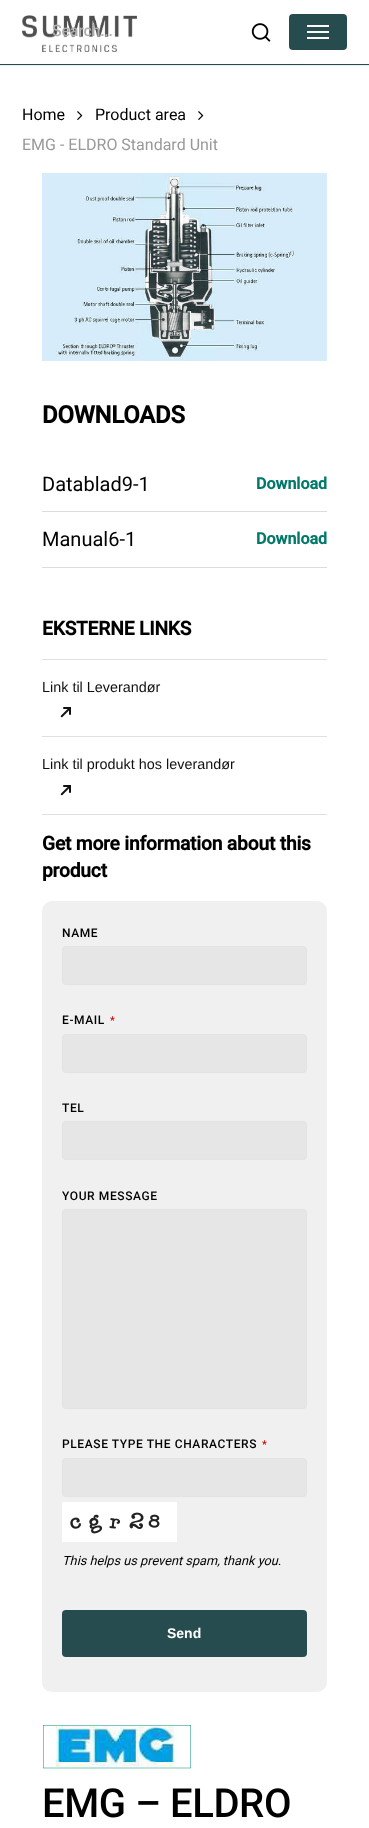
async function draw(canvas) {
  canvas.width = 369
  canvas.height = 1828
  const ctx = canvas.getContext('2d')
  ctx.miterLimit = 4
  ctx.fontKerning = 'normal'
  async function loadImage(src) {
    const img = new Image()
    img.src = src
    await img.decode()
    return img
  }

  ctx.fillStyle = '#fff'
  ctx.fillRect(0, 0, 369, 1828)
  ctx.fillStyle = '#ebebeb'
  ctx.fillRect(0, 65, 369, 1)
  ctx.fillStyle = '#274c4f'
  ctx.fillRect(0, 64, 369, 1)
  ctx.drawImage(await loadImage('image0.png'), 22, 15, 115, 37)
  ctx.drawImage(await loadImage('image1.png'), 251, 23, 20, 19)
  ctx.beginPath()
  ctx.roundRect(289, 14, 58, 36, 4)
  ctx.fill()
  ctx.fillStyle = '#fbfaf9'
  ctx.fillRect(307, 25, 22, 2)
  ctx.fillRect(307, 37, 22, 2)
  ctx.fillRect(307, 31, 22, 2)
  ctx.letterSpacing = '-0.25px'
  ctx.font = '500 16px Roboto'
  ctx.fillStyle = '#aeaeae'
  ctx.fillText('Search...', 52, 36)
  ctx.letterSpacing = '0px'
  ctx.font = '16px Roboto'
  ctx.fillStyle = '#000'
  ctx.fillText('Home', 22, 120)
  ctx.drawImage(await loadImage('image2.png'), 77, 111, 6, 9)
  ctx.fillText('Product area', 95, 120)
  ctx.drawImage(await loadImage('image2.png'), 198, 111, 6, 9)
  ctx.fillStyle = '#999'
  ctx.fillText('EMG - ELDRO Standard Unit', 22, 150)
  ctx.drawImage(await loadImage('image3.png'), 42, 173, 285, 188)
  ctx.letterSpacing = '-0.25px'
  ctx.font = 'bold 24px Roboto'
  ctx.fillStyle = '#000'
  ctx.fillText('DOWNLOADS', 42, 423)
  ctx.fillStyle = '#ddd'
  ctx.fillRect(42, 511, 285, 1)
  ctx.letterSpacing = '0px'
  ctx.font = '20px Roboto'
  ctx.fillStyle = '#000'
  ctx.fillText('Datablad9-1', 42, 491)
  ctx.font = 'bold 16px Roboto'
  ctx.fillStyle = '#00796b'
  ctx.fillText('Download', 256, 489)
  ctx.fillStyle = '#ddd'
  ctx.fillRect(42, 567, 285, 1)
  ctx.font = '20px Roboto'
  ctx.fillStyle = '#000'
  ctx.fillText('Manual6-1', 42, 546)
  ctx.font = 'bold 16px Roboto'
  ctx.fillStyle = '#00796b'
  ctx.fillText('Download', 256, 544)
  ctx.letterSpacing = '-0.2px'
  ctx.font = 'bold 19.25px Roboto'
  ctx.fillStyle = '#000'
  ctx.fillText('EKSTERNE LINKS', 42, 635)
  ctx.fillStyle = '#e0e0e0'
  ctx.fillRect(42, 659, 285, 1)
  ctx.fillRect(42, 736, 285, 1)
  ctx.letterSpacing = '0px'
  ctx.font = '14.4px Liberation Sans'
  ctx.fillStyle = '#111'
  ctx.fillText('Link til Leverandør', 42, 692)
  ctx.drawImage(await loadImage('image4.png'), 60, 707, 11, 11)
  ctx.fillStyle = '#e0e0e0'
  ctx.fillRect(42, 814, 285, 1)
  ctx.fillStyle = '#111'
  ctx.fillText('Link til produkt hos leverandør', 42, 769)
  ctx.drawImage(await loadImage('image4.png'), 60, 785, 11, 11)
  ctx.letterSpacing = '-0.2px'
  ctx.font = 'bold 19.25px Roboto'
  ctx.fillStyle = '#000'
  ctx.fillText('Get more information about this', 42, 850)
  ctx.fillText('product', 42, 877)
  ctx.fillStyle = '#f1f0f0'
  ctx.beginPath()
  ctx.roundRect(42, 901, 285, 791, 10)
  ctx.fill()
  ctx.letterSpacing = '0.6px'
  ctx.font = '500 12px Roboto'
  ctx.fillStyle = '#000'
  ctx.fillText('NAME', 62, 937)
  ctx.fillStyle = '#e7e6e6'
  ctx.beginPath()
  ctx.roundRect(62.5, 946.5, 244, 38, 3.5)
  ctx.fill()
  ctx.strokeStyle = '#e3e3e3'
  ctx.stroke()
  ctx.fillStyle = '#000'
  ctx.fillText('E-MAIL', 62, 1024)
  ctx.font = '500 11px Roboto'
  ctx.fillStyle = '#cc0101'
  ctx.fillText('*', 110, 1024)
  ctx.fillStyle = '#e7e6e6'
  ctx.beginPath()
  ctx.roundRect(62.5, 1034.5, 244, 38, 3.5)
  ctx.fill()
  ctx.stroke()
  ctx.font = '500 12px Roboto'
  ctx.fillStyle = '#000'
  ctx.fillText('TEL', 62, 1112)
  ctx.fillStyle = '#e7e6e6'
  ctx.beginPath()
  ctx.roundRect(62.5, 1121.5, 244, 38, 3.5)
  ctx.fill()
  ctx.stroke()
  ctx.fillStyle = '#000'
  ctx.fillText('YOUR MESSAGE', 62, 1200)
  ctx.fillStyle = '#e7e6e6'
  ctx.beginPath()
  ctx.roundRect(62.5, 1209.5, 244, 199, 3.5)
  ctx.fill()
  ctx.stroke()
  ctx.fillStyle = '#000'
  ctx.fillText('PLEASE TYPE THE CHARACTERS', 62, 1448)
  ctx.font = '500 11px Roboto'
  ctx.fillStyle = '#cc0101'
  ctx.fillText('*', 262, 1448)
  ctx.fillStyle = '#e7e6e6'
  ctx.beginPath()
  ctx.roundRect(62.5, 1458.5, 244, 38, 3.5)
  ctx.fill()
  ctx.stroke()
  ctx.drawImage(await loadImage('image5.png'), 62, 1502, 115, 40)
  ctx.letterSpacing = '0px'
  ctx.font = 'italic 12.75px Roboto'
  ctx.fillStyle = '#000'
  ctx.fillText('This helps us prevent spam, thank you.', 62, 1565)
  ctx.fillStyle = '#274c4f'
  ctx.beginPath()
  ctx.roundRect(62, 1610, 245, 47, 4)
  ctx.fill()
  ctx.font = 'bold 14px Liberation Sans'
  ctx.fillStyle = '#fff'
  ctx.fillText('Send', 167, 1638)
  ctx.drawImage(await loadImage('image6.png'), 43, 1725, 148, 44)
  ctx.letterSpacing = '-0.4px'
  ctx.font = '500 40px Roboto'
  ctx.fillStyle = '#000'
  ctx.fillText('EMG – ELDRO', 42, 1817)
}

draw(document.querySelector('canvas'))
